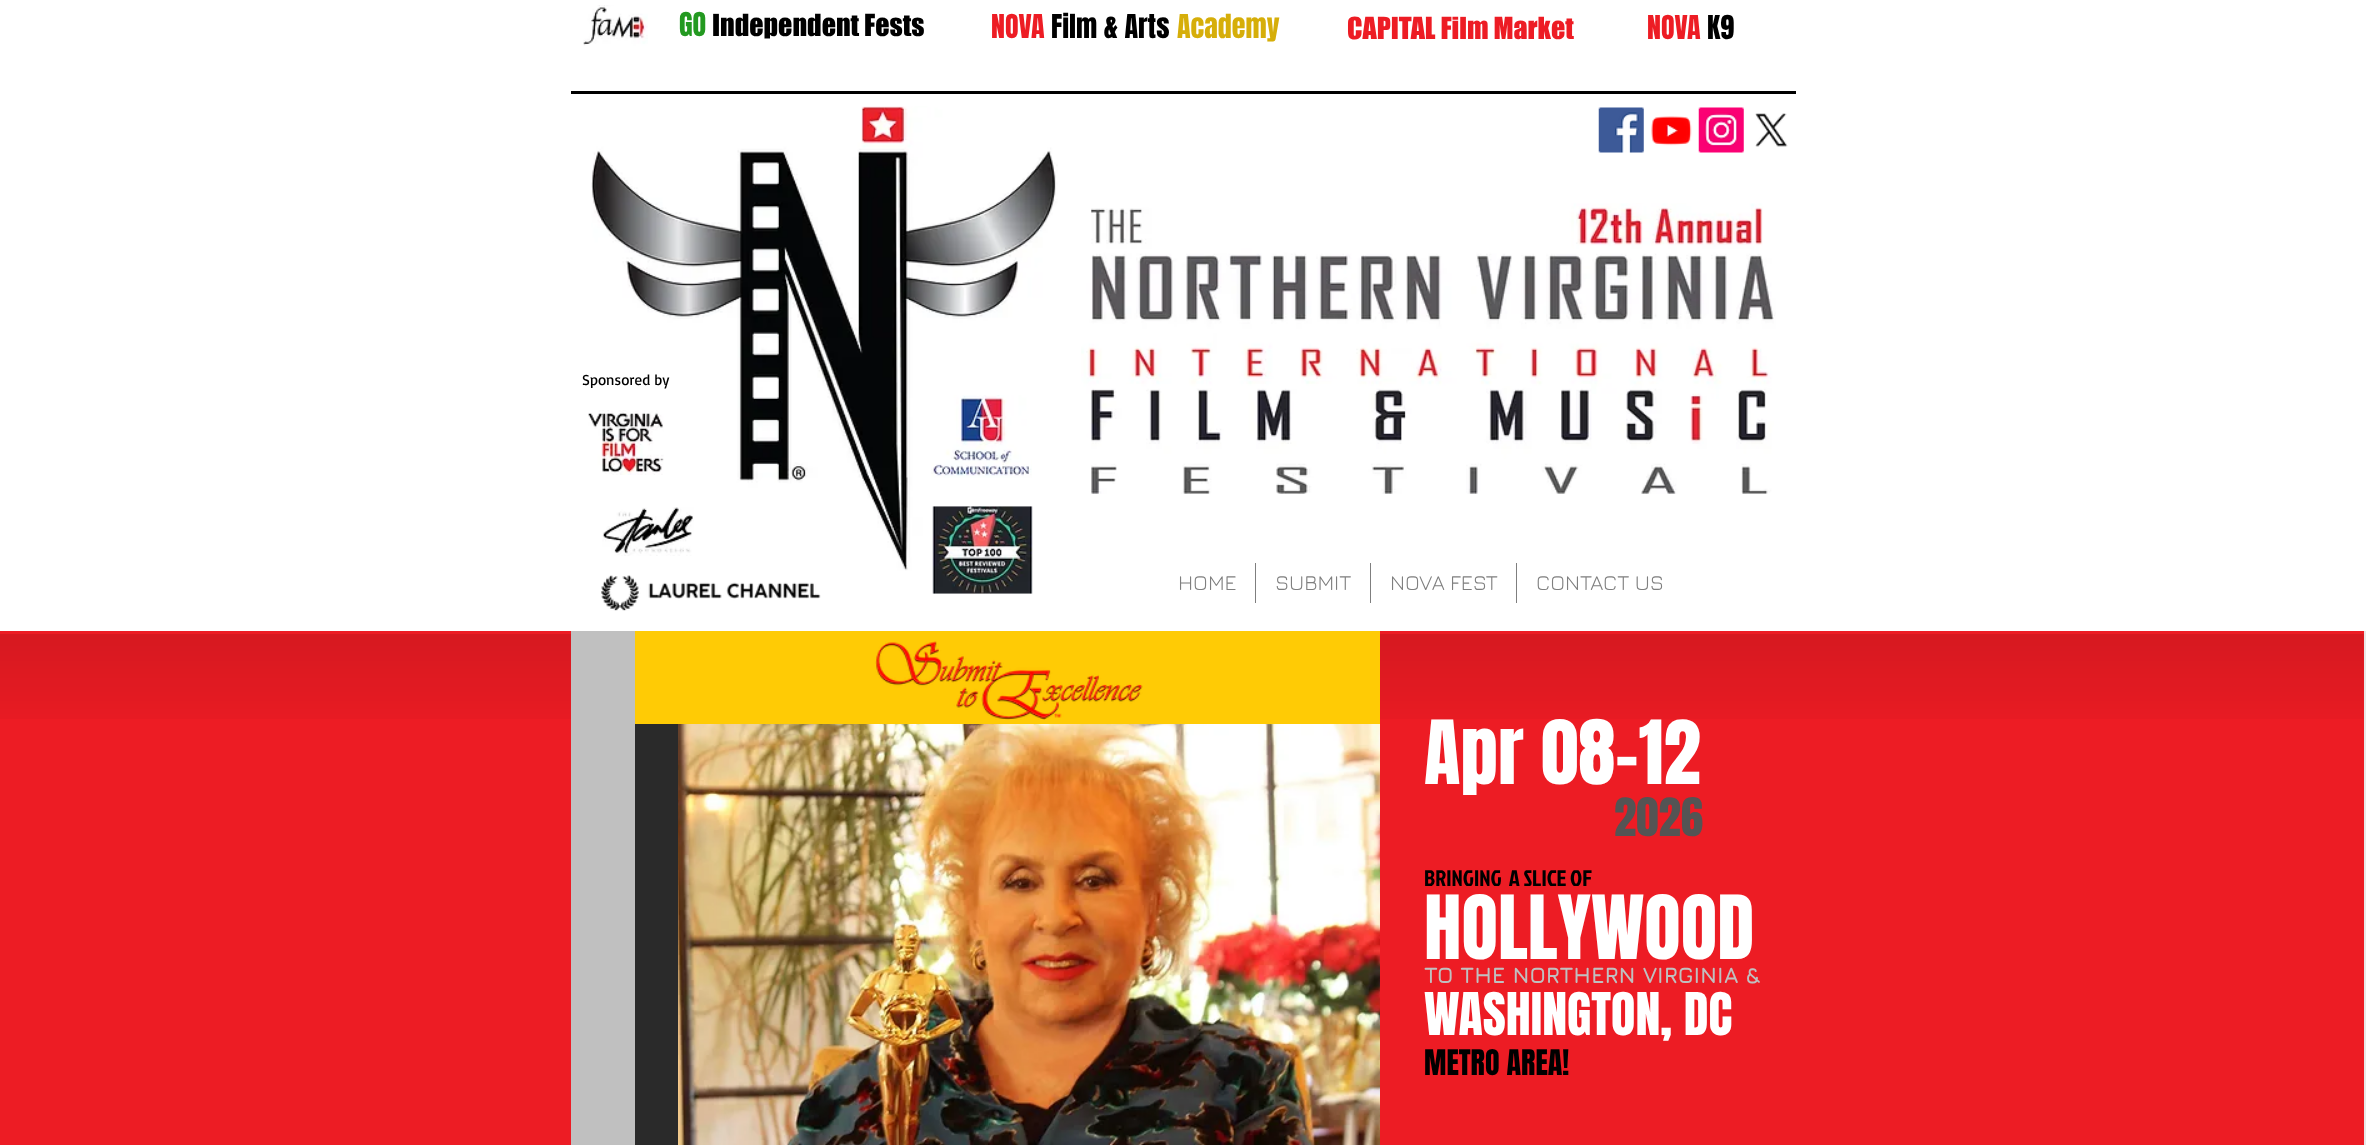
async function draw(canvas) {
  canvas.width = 2366
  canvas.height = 1145
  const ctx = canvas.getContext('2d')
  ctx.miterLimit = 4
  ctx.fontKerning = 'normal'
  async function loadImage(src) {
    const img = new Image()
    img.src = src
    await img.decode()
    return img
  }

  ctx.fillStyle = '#e8e8e8'
  ctx.fillRect(0, 0, 2366, 1145)
  ctx.fillStyle = '#fff'
  ctx.fillRect(0, 0, 2366, 631)
  ctx.drawImage(await loadImage('image0.png'), 583, 5, 65, 41)
  ctx.font = '28px Anton'
  ctx.fillStyle = '#239920'
  ctx.fillText('GO', 679, 36)
  ctx.font = '28px "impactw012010"'
  ctx.fillStyle = '#000'
  ctx.fillText('Independent Fests', 712, 36)
  ctx.font = '28px Anton'
  ctx.fillStyle = '#ed1c24'
  ctx.fillText('NOVA', 991, 38)
  ctx.fillStyle = '#000'
  ctx.fillText('Film & Arts', 1051, 38)
  ctx.fillStyle = '#d6ae09'
  ctx.fillText('Academy', 1177, 38)
  ctx.font = '28px "impactw012010"'
  ctx.fillStyle = '#ed1c24'
  ctx.fillText('CAPITAL Film Market', 1347, 39)
  ctx.font = '28px Anton'
  ctx.fillText('NOVA', 1647, 39)
  ctx.fillStyle = '#000'
  ctx.fillText('K9', 1707, 39)
  ctx.fillRect(571, 91, 1225, 3)
  ctx.drawImage(await loadImage('image1.png'), 591, 106, 467, 465)
  ctx.drawImage(await loadImage('image2.png'), 1598, 107, 46, 46)
  ctx.drawImage(await loadImage('image3.png'), 1651, 116, 41, 30)
  ctx.drawImage(await loadImage('image4.png'), 1698, 107, 46, 46)
  ctx.drawImage(await loadImage('image5.png'), 1755, 113, 33, 34)
  ctx.font = '15px Basic'
  ctx.fillText('Sponsored by', 582, 385)
  ctx.drawImage(await loadImage('image6.png'), 1081, 203, 695, 291)
  ctx.drawImage(await loadImage('image7.png'), 588, 410, 76, 65)
  ctx.drawImage(await loadImage('image8.png'), 931, 395, 101, 83)
  ctx.drawImage(await loadImage('image9.png'), 602, 507, 92, 49)
  ctx.drawImage(await loadImage('image10.png'), 932, 506, 101, 88)
  ctx.drawImage(await loadImage('image11.png'), 601, 575, 220, 36)
  ctx.font = '21.25px Jura'
  ctx.fillStyle = '#7f7f7f'
  ctx.fillText('HOME', 1178, 590)
  ctx.fillRect(1255, 563, 1, 40)
  ctx.fillText('SUBMIT', 1275, 590)
  ctx.fillRect(1370, 563, 1, 40)
  ctx.fillText('NOVA FEST', 1390, 590)
  ctx.fillRect(1516, 563, 1, 40)
  ctx.fillText('CONTACT US', 1536, 590)
  ctx.fillStyle = '#ed1c24'
  ctx.fillRect(0, 631, 2364, 514)
  ctx.drawImage(await loadImage('image12.png'), 0, 634, 2364, 85)
  ctx.fillStyle = '#c0c0c0'
  ctx.fillRect(571, 631, 64, 514)
  ctx.fillStyle = '#ffcb05'
  ctx.fillRect(635, 631, 745, 93)
  ctx.drawImage(await loadImage('image13.png'), 875, 641, 268, 79)
  ctx.fillStyle = '#2a2a2a'
  ctx.fillRect(635, 724, 43, 421)
  ctx.drawImage(await loadImage('image14.png'), 678, 724, 702, 421)
  ctx.font = '75px Anton'
  ctx.fillStyle = '#fff'
  ctx.fillText('Apr 08-12', 1424, 784)
  ctx.font = '22.5px Jockey One'
  ctx.fillStyle = '#000'
  ctx.fillText('BRINGING  A SLICE OF', 1424, 886)
  ctx.font = '75px Anton'
  ctx.fillStyle = '#fff'
  ctx.fillText('HOLLYWOOD', 1424, 959)
  ctx.font = 'bold 22.5px Jura'
  ctx.fillStyle = '#c0c0c0'
  ctx.fillText('TO THE NORTHERN VIRGINIA &', 1424, 983)
  ctx.font = '50px Anton'
  ctx.fillStyle = '#fff'
  ctx.fillText('WASHINGTON, DC', 1424, 1035)
  ctx.font = '30px Anton'
  ctx.fillStyle = '#000'
  ctx.fillText('METRO AREA!', 1424, 1075)
  ctx.font = '45px Anton'
  ctx.fillStyle = '#545454'
  ctx.fillText('2026', 1614, 836)
}

draw(document.querySelector('canvas'))
